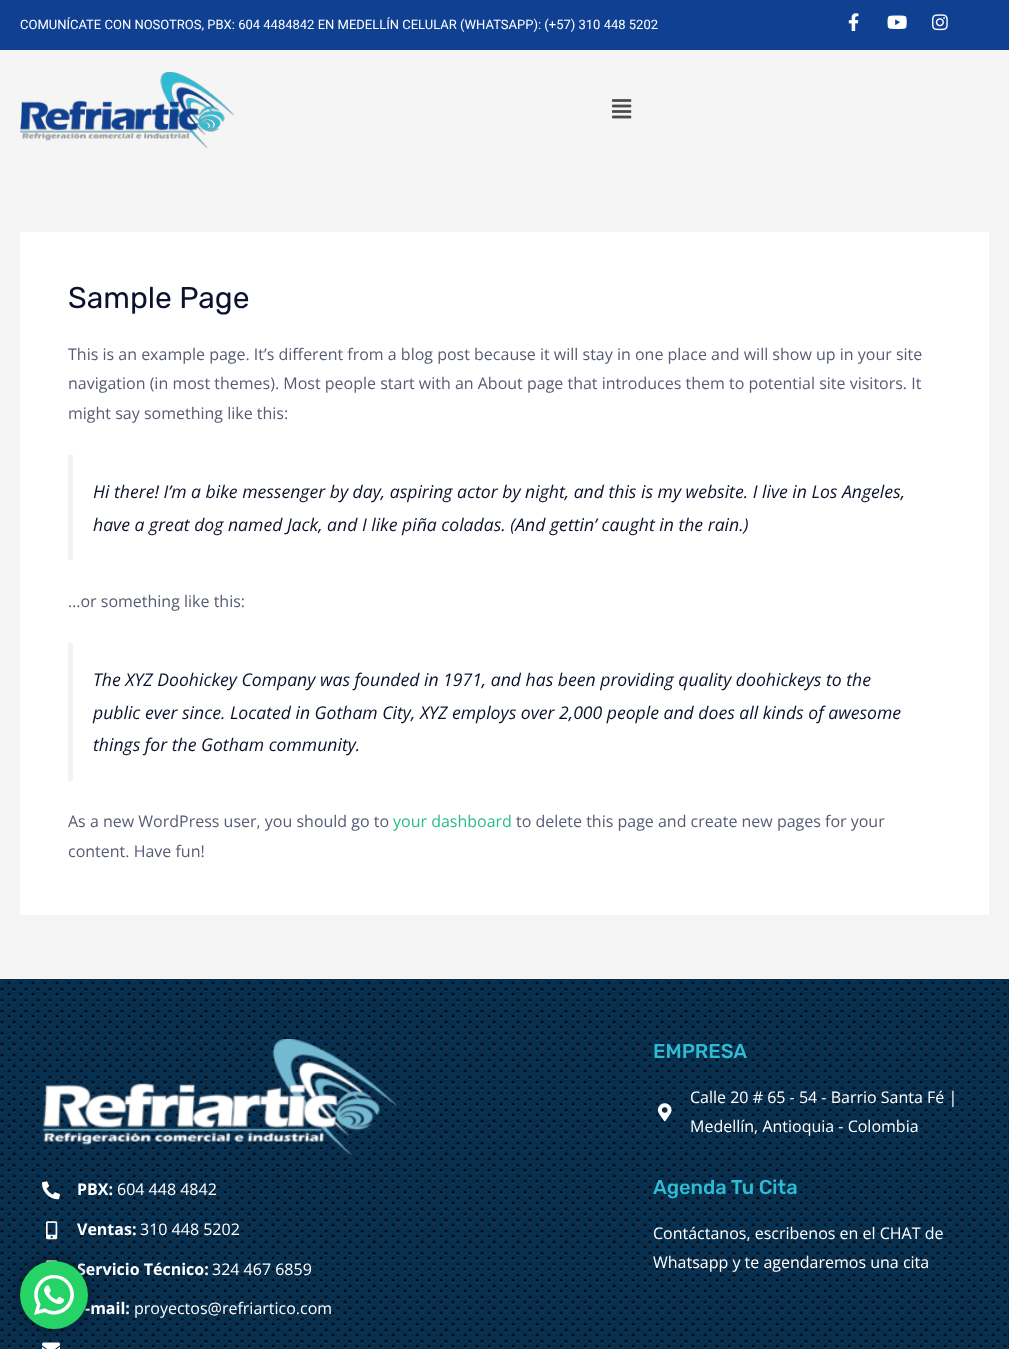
async function draw(canvas) {
  canvas.width = 1009
  canvas.height = 1349
  const ctx = canvas.getContext('2d')
  ctx.miterLimit = 4
  ctx.fontKerning = 'normal'
  async function loadImage(src) {
    const img = new Image()
    img.src = src
    await img.decode()
    return img
  }

  ctx.fillStyle = '#f5f5f5'
  ctx.fillRect(0, 0, 1009, 1349)
  ctx.fillStyle = '#104092'
  ctx.fillRect(0, 0, 1009, 50)
  ctx.font = '13px Roboto'
  ctx.fillStyle = '#fff'
  ctx.fillText('COMUNÍCATE CON NOSOTROS, PBX: 604 4484842 EN MEDELLÍN CELULAR (WHATSAPP): (+57) 310 448 5202', 20, 29)
  ctx.drawImage(await loadImage('image0.png'), 848, 13, 11, 18)
  ctx.drawImage(await loadImage('image1.png'), 887, 15, 20, 14)
  ctx.drawImage(await loadImage('image2.png'), 932, 14, 16, 17)
  ctx.drawImage(await loadImage('image3.png'), 20, 72, 214, 76)
  ctx.drawImage(await loadImage('image4.png'), 612, 99, 20, 20)
  ctx.fillRect(20, 232, 969, 683)
  ctx.font = '30px Rubik'
  ctx.fillStyle = '#0c122d'
  ctx.fillText('Sample Page', 68, 308)
  ctx.font = '16px Open Sans'
  ctx.fillStyle = '#575c74'
  ctx.fillText('This is an example page. It’s different from a blog post because it will stay in one place and will show up in your site', 68, 360)
  ctx.fillText('navigation (in most themes). Most people start with an About page that introduces them to potential site visitors. It', 68, 389)
  ctx.fillText('might say something like this:', 68, 419)
  ctx.fillStyle = '#f2f2f2'
  ctx.fillRect(68, 455, 5, 105)
  ctx.font = 'italic 17.6px Open Sans'
  ctx.fillStyle = '#0c122d'
  ctx.fillText('Hi there! I’m a bike messenger by day, aspiring actor by night, and this is my website. I live in Los Angeles,', 93, 498)
  ctx.fillText('have a great dog named Jack, and I like piña coladas. (And gettin’ caught in the rain.)', 93, 531)
  ctx.font = '16px Open Sans'
  ctx.fillStyle = '#575c74'
  ctx.fillText('…or something like this:', 68, 607)
  ctx.fillStyle = '#f2f2f2'
  ctx.fillRect(68, 643, 5, 138)
  ctx.font = 'italic 17.6px Open Sans'
  ctx.fillStyle = '#0c122d'
  ctx.fillText('The XYZ Doohickey Company was founded in 1971, and has been providing quality doohickeys to the', 93, 686)
  ctx.fillText('public ever since. Located in Gotham City, XYZ employs over 2,000 people and does all kinds of awesome', 93, 719)
  ctx.fillText('things for the Gotham community.', 93, 751)
  ctx.font = '16px Open Sans'
  ctx.fillStyle = '#575c74'
  ctx.fillText('As a new WordPress user, you should go to', 68, 827)
  ctx.fillStyle = '#28bd86'
  ctx.fillText('your dashboard', 393, 827)
  ctx.fillStyle = '#575c74'
  ctx.fillText('to delete this page and create new pages for your', 516, 827)
  ctx.fillText('content. Have fun!', 68, 857)
  ctx.fillStyle = '#094e86'
  ctx.fillRect(0, 979, 1009, 370)
  ctx.drawImage(await loadImage('image5.png'), 0, 979, 1009, 370)
  ctx.drawImage(await loadImage('image6.png'), 42, 1039, 354, 116)
  ctx.drawImage(await loadImage('image7.png'), 42, 1181, 18, 19)
  ctx.font = 'bold 16px Open Sans'
  ctx.fillStyle = '#fff'
  ctx.fillText('PBX:', 77, 1195)
  ctx.font = '16px Open Sans'
  ctx.fillText('604 448 4842', 117, 1195)
  ctx.drawImage(await loadImage('image8.png'), 46, 1221, 12, 19)
  ctx.font = 'bold 16px Open Sans'
  ctx.fillText('Ventas:', 77, 1235)
  ctx.font = '16px Open Sans'
  ctx.fillText('310 448 5202', 140, 1235)
  ctx.drawImage(await loadImage('image9.png'), 46, 1260, 12, 2)
  ctx.font = 'bold 16px Open Sans'
  ctx.fillText('Servicio Técnico:', 77, 1275)
  ctx.font = '16px Open Sans'
  ctx.fillText('324 467 6859', 212, 1275)
  ctx.font = 'bold 16px Open Sans'
  ctx.fillText('-mail:', 85, 1314)
  ctx.font = '16px Open Sans'
  ctx.fillText('proyectos@refriartico.com', 134, 1314)
  ctx.drawImage(await loadImage('image10.png'), 42, 1342, 18, 7)
  ctx.font = '500 20px Rubik'
  ctx.fillStyle = '#2fbbd2'
  ctx.fillText('EMPRESA', 653, 1058)
  ctx.drawImage(await loadImage('image11.png'), 658, 1103, 14, 19)
  ctx.font = '16px Open Sans'
  ctx.fillStyle = '#fff'
  ctx.fillText('Calle 20 # 65 - 54 - Barrio Santa Fé |', 690, 1103)
  ctx.fillText('Medellín, Antioquia - Colombia', 690, 1132)
  ctx.font = '500 20px Rubik'
  ctx.fillStyle = '#2fbbd2'
  ctx.fillText('Agenda Tu Cita', 653, 1194)
  ctx.font = '16px Open Sans'
  ctx.fillStyle = '#fff'
  ctx.fillText('Contáctanos, escribenos en el CHAT de', 653, 1239)
  ctx.fillText('Whatsapp y te agendaremos una cita', 653, 1268)
  ctx.fillStyle = '#00000080'
  ctx.filter = 'blur(5.5px)'
  ctx.beginPath()
  ctx.roundRect(20, 1261, 68, 68, 34)
  ctx.fill()
  ctx.filter = 'none'
  ctx.fillStyle = '#25d366'
  ctx.beginPath()
  ctx.arc(54, 1295, 34, 0, 2 * Math.PI)
  ctx.fill()
  ctx.drawImage(await loadImage('image12.png'), 34, 1275, 40, 40)
}

draw(document.querySelector('canvas'))
